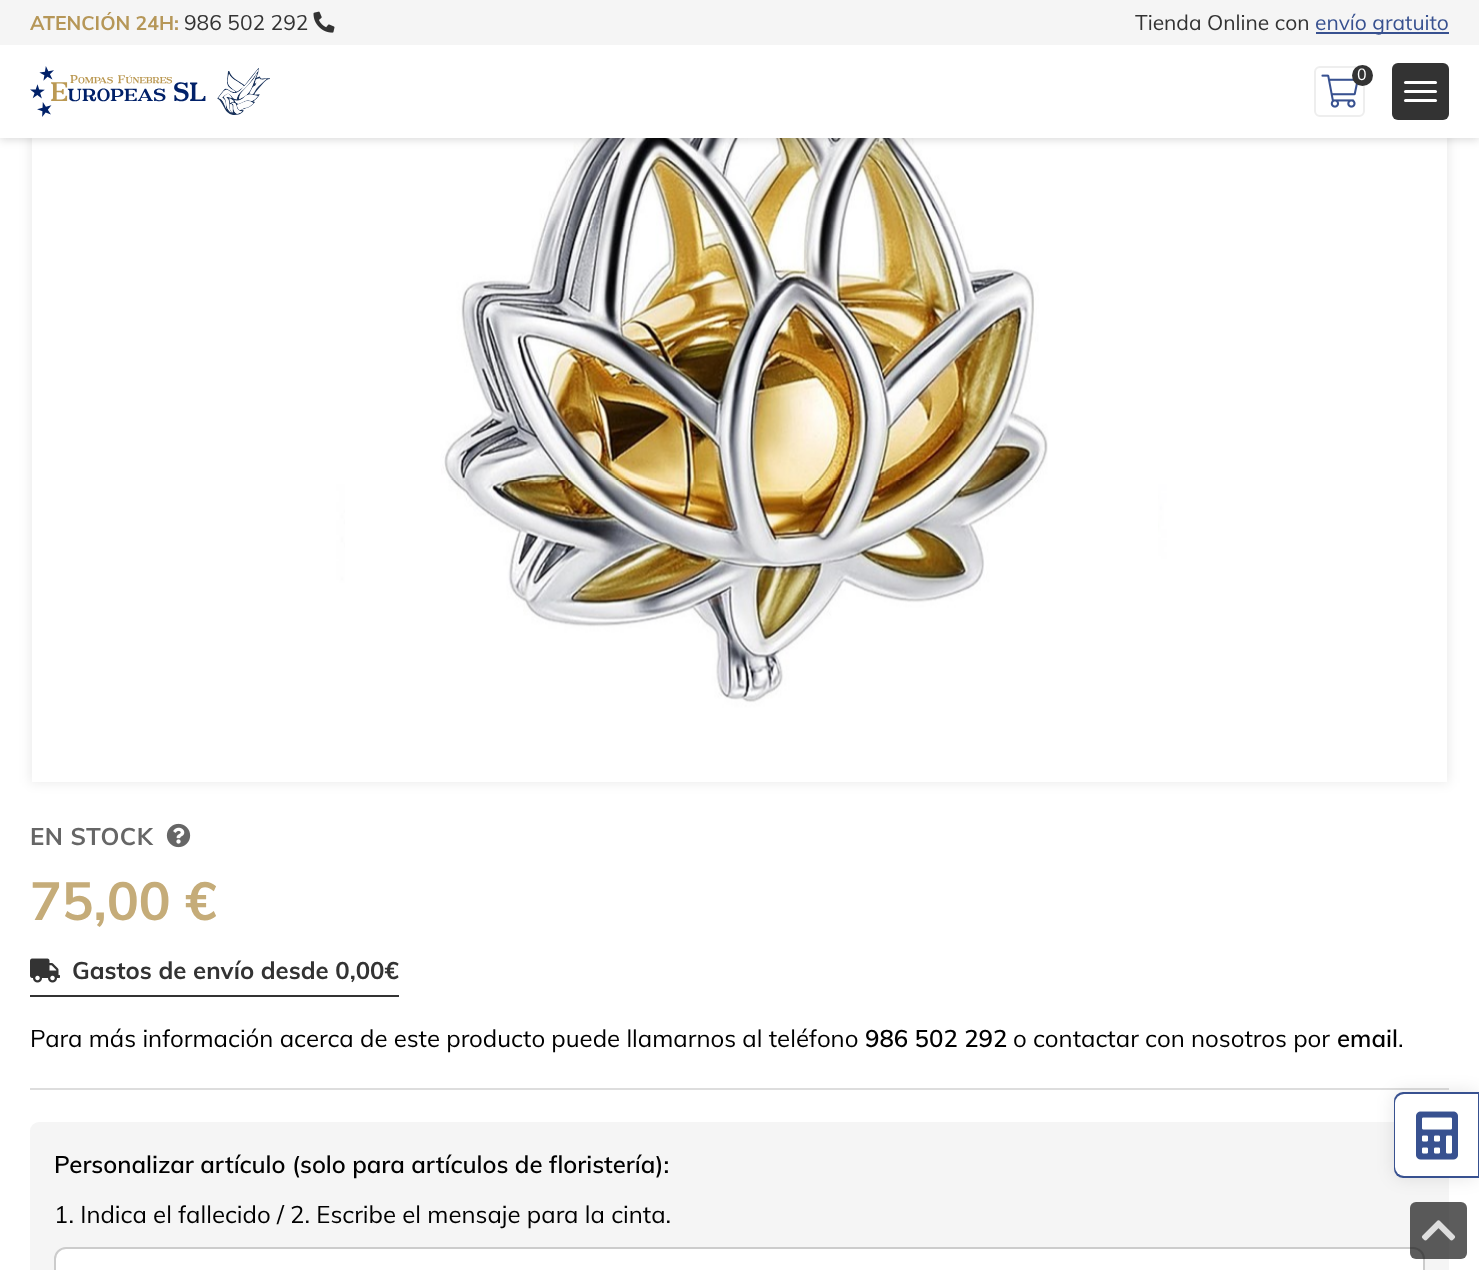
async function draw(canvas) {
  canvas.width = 1479
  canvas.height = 1270
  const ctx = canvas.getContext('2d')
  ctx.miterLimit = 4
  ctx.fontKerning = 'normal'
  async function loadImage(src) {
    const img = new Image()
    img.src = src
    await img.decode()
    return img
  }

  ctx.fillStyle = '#fff'
  ctx.fillRect(0, 0, 1479, 1270)
  ctx.fillStyle = '#00000014'
  ctx.filter = 'blur(6px)'
  ctx.beginPath()
  ctx.rect(30, -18, 1419, 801)
  ctx.fill()
  ctx.filter = 'none'
  ctx.drawImage(await loadImage('image3.png'), 32, 138, 1415, 644)
  ctx.drawImage(await loadImage('image4.png'), 345, 138, 813, 644)
  ctx.fillStyle = '#00000024'
  ctx.filter = 'blur(4px)'
  ctx.beginPath()
  ctx.rect(0, 2, 1479, 138)
  ctx.fill()
  ctx.filter = 'none'
  ctx.fillStyle = '#f5f5f5'
  ctx.fillRect(0, 0, 1479, 45)
  ctx.font = 'bold 19.5px Muli'
  ctx.fillStyle = '#b69758'
  ctx.fillText('ATENCIÓN 24H:', 30, 30)
  ctx.font = '21px Muli'
  ctx.fillStyle = '#333'
  ctx.fillText('986 502 292', 184, 30)
  ctx.drawImage(await loadImage('image0.png'), 313, 11, 22, 22)
  ctx.fillText('Tienda Online con', 1135, 30)
  ctx.fillStyle = '#385190'
  ctx.fillRect(1316, 32, 133, 2)
  ctx.fillText('envío gratuito', 1315, 30)
  ctx.fillStyle = '#fff'
  ctx.fillRect(0, 45, 1479, 93)
  ctx.drawImage(await loadImage('image1.png'), 30, 66, 240, 51)
  ctx.beginPath()
  ctx.roundRect(1315, 67, 49, 49, 5)
  ctx.strokeStyle = '#eee'
  ctx.lineWidth = 2
  ctx.stroke()
  ctx.drawImage(await loadImage('image2.png'), 1321, 74, 37, 34)
  ctx.fillStyle = '#333'
  ctx.beginPath()
  ctx.arc(1362.5, 75.5, 10.5, 0, 2 * Math.PI)
  ctx.fill()
  ctx.font = '16px Muli'
  ctx.fillStyle = '#fff'
  ctx.fillText('0', 1357, 80)
  ctx.fillStyle = '#333'
  ctx.beginPath()
  ctx.roundRect(1392, 63, 57, 57, 6)
  ctx.fill()
  ctx.fillStyle = '#fff'
  ctx.beginPath()
  ctx.roundRect(1404, 90, 33, 3, 1.5)
  ctx.fill()
  ctx.beginPath()
  ctx.roundRect(1404, 81, 33, 3, 1.5)
  ctx.fill()
  ctx.beginPath()
  ctx.roundRect(1404, 99, 33, 3, 1.5)
  ctx.fill()
  ctx.letterSpacing = '0.5px'
  ctx.font = 'bold 24px Muli'
  ctx.fillStyle = '#666'
  ctx.fillText('EN STOCK', 30, 845)
  ctx.drawImage(await loadImage('image5.png'), 166, 823, 25, 25)
  ctx.letterSpacing = '0px'
  ctx.font = 'bold 53px Muli'
  ctx.fillStyle = '#c5ac79'
  ctx.fillText('75,00 €', 30, 920)
  ctx.fillStyle = '#333'
  ctx.fillRect(30, 995, 369, 2)
  ctx.drawImage(await loadImage('image6.png'), 30, 958, 30, 25)
  ctx.font = 'bold 24px Muli'
  ctx.fillText('Gastos de envío desde 0,00€', 72, 979)
  ctx.fillStyle = '#ddd'
  ctx.fillRect(30, 1088, 1419, 2)
  ctx.font = '24px Muli'
  ctx.fillStyle = '#000'
  ctx.fillText('Para más información acerca de este producto puede llamarnos al teléfono', 30, 1047)
  ctx.font = '600 24px Muli'
  ctx.fillText('986 502 292', 865, 1047)
  ctx.font = '24px Muli'
  ctx.fillText('o contactar con nosotros por', 1013, 1047)
  ctx.font = '600 24px Muli'
  ctx.fillText('email', 1337, 1047)
  ctx.font = '24px Muli'
  ctx.fillText('.', 1398, 1047)
  ctx.fillStyle = '#f5f5f5'
  ctx.beginPath()
  ctx.roundRect(30, 1122, 1419, 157, 9)
  ctx.fill()
  ctx.font = '600 24px Muli'
  ctx.fillStyle = '#000'
  ctx.fillText('Personalizar artículo (solo para artículos de floristería):', 54, 1173)
  ctx.font = '24px Muli'
  ctx.fillText('1. Indica el fallecido / 2. Escribe el mensaje para la cinta.', 54, 1223)
  ctx.fillStyle = '#fff'
  ctx.beginPath()
  ctx.roundRect(55, 1248, 1369, 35, 11)
  ctx.fill()
  ctx.strokeStyle = '#ccc'
  ctx.stroke()
  ctx.fillStyle = '#0000001a'
  ctx.filter = 'blur(9px)'
  ctx.beginPath()
  ctx.roundRect(1394, 1092, 85, 86, 9)
  ctx.fill()
  ctx.filter = 'none'
  ctx.fillStyle = '#385190'
  ctx.beginPath()
  ctx.roundRect(1394, 1092, 85, 86, [9, 0, 0, 9])
  ctx.fill()
  ctx.fillStyle = '#fff'
  ctx.beginPath()
  ctx.roundRect(1395, 1094, 83, 82, [9, 0, 0, 9])
  ctx.fill()
  ctx.drawImage(await loadImage('image7.png'), 1416, 1111, 42, 49)
  ctx.fillStyle = '#000000a3'
  ctx.beginPath()
  ctx.roundRect(1410, 1202, 57, 57, 6)
  ctx.fill()
  ctx.drawImage(await loadImage('image8.png'), 1421, 1220, 35, 21)
}

draw(document.querySelector('canvas'))
